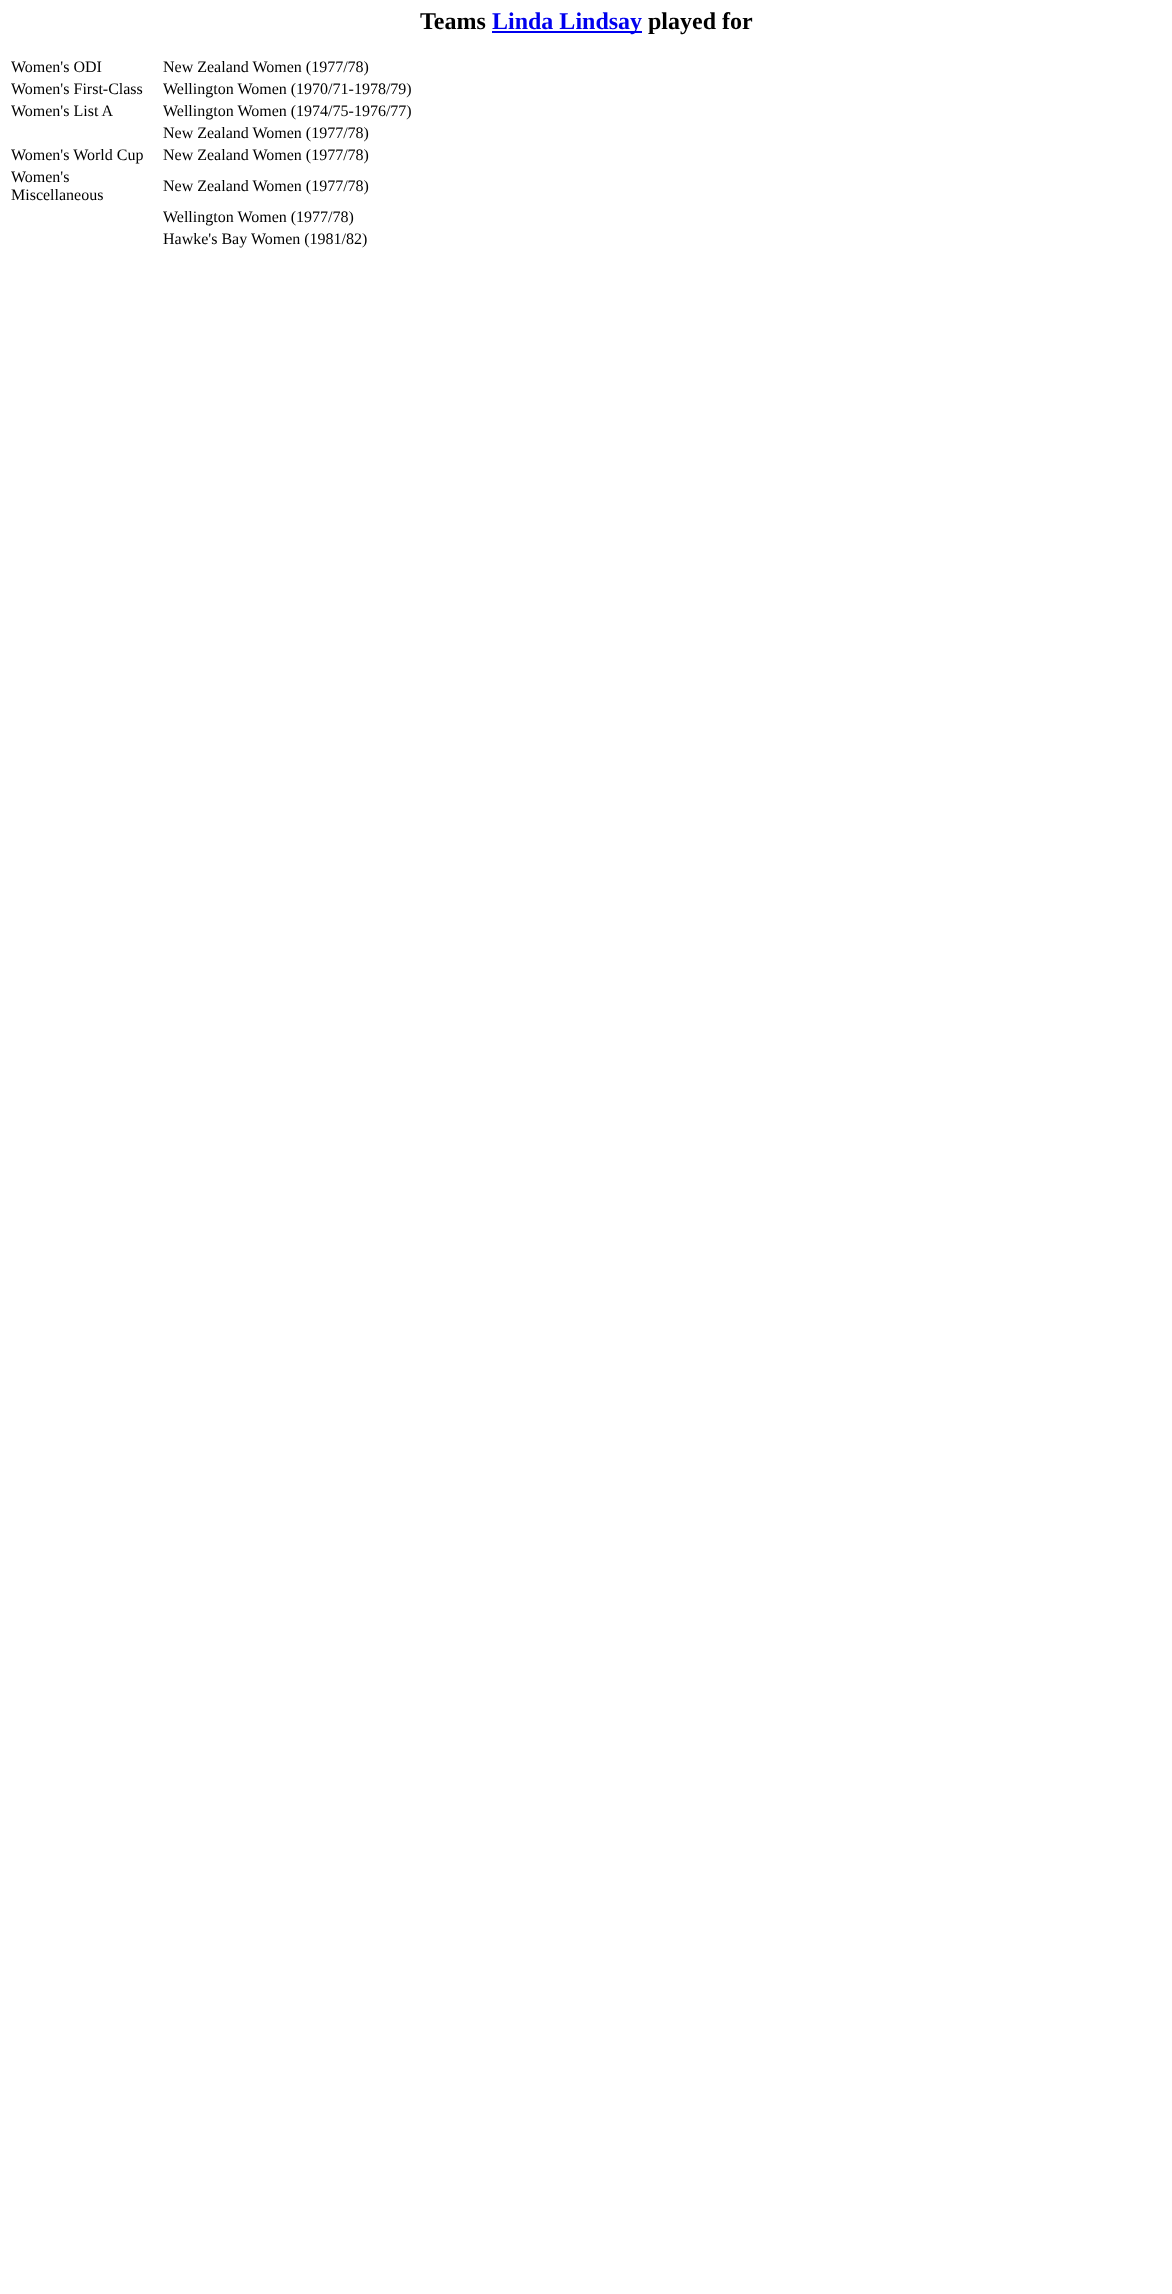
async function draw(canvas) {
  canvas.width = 1172
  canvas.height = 2294
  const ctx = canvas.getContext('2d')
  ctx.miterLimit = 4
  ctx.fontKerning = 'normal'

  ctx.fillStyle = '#fff'
  ctx.fillRect(0, 0, 1172, 2294)
  ctx.font = 'bold 24px Liberation Serif'
  ctx.fillStyle = '#000'
  ctx.fillText('Teams', 420, 29)
  ctx.fillStyle = '#00e'
  ctx.fillRect(492, 31, 150, 2)
  ctx.fillText('Linda Lindsay', 492, 29)
  ctx.fillStyle = '#000'
  ctx.fillText('played for', 648, 29)
  ctx.font = '16px Liberation Serif'
  ctx.fillText('Women\'s ODI', 11, 72)
  ctx.fillText('New Zealand Women (1977/78)', 163, 72)
  ctx.fillText('Women\'s First-Class', 11, 94)
  ctx.fillText('Wellington Women (1970/71-1978/79)', 163, 94)
  ctx.fillText('Women\'s List A', 11, 116)
  ctx.fillText('Wellington Women (1974/75-1976/77)', 163, 116)
  ctx.fillText('New Zealand Women (1977/78)', 163, 138)
  ctx.fillText('Women\'s World Cup', 11, 160)
  ctx.fillText('New Zealand Women (1977/78)', 163, 160)
  ctx.fillText('Women\'s', 11, 182)
  ctx.fillText('Miscellaneous', 11, 200)
  ctx.fillText('New Zealand Women (1977/78)', 163, 191)
  ctx.fillText('Wellington Women (1977/78)', 163, 222)
  ctx.fillText('Hawke\'s Bay Women (1981/82)', 163, 244)
}

draw(document.querySelector('canvas'))
